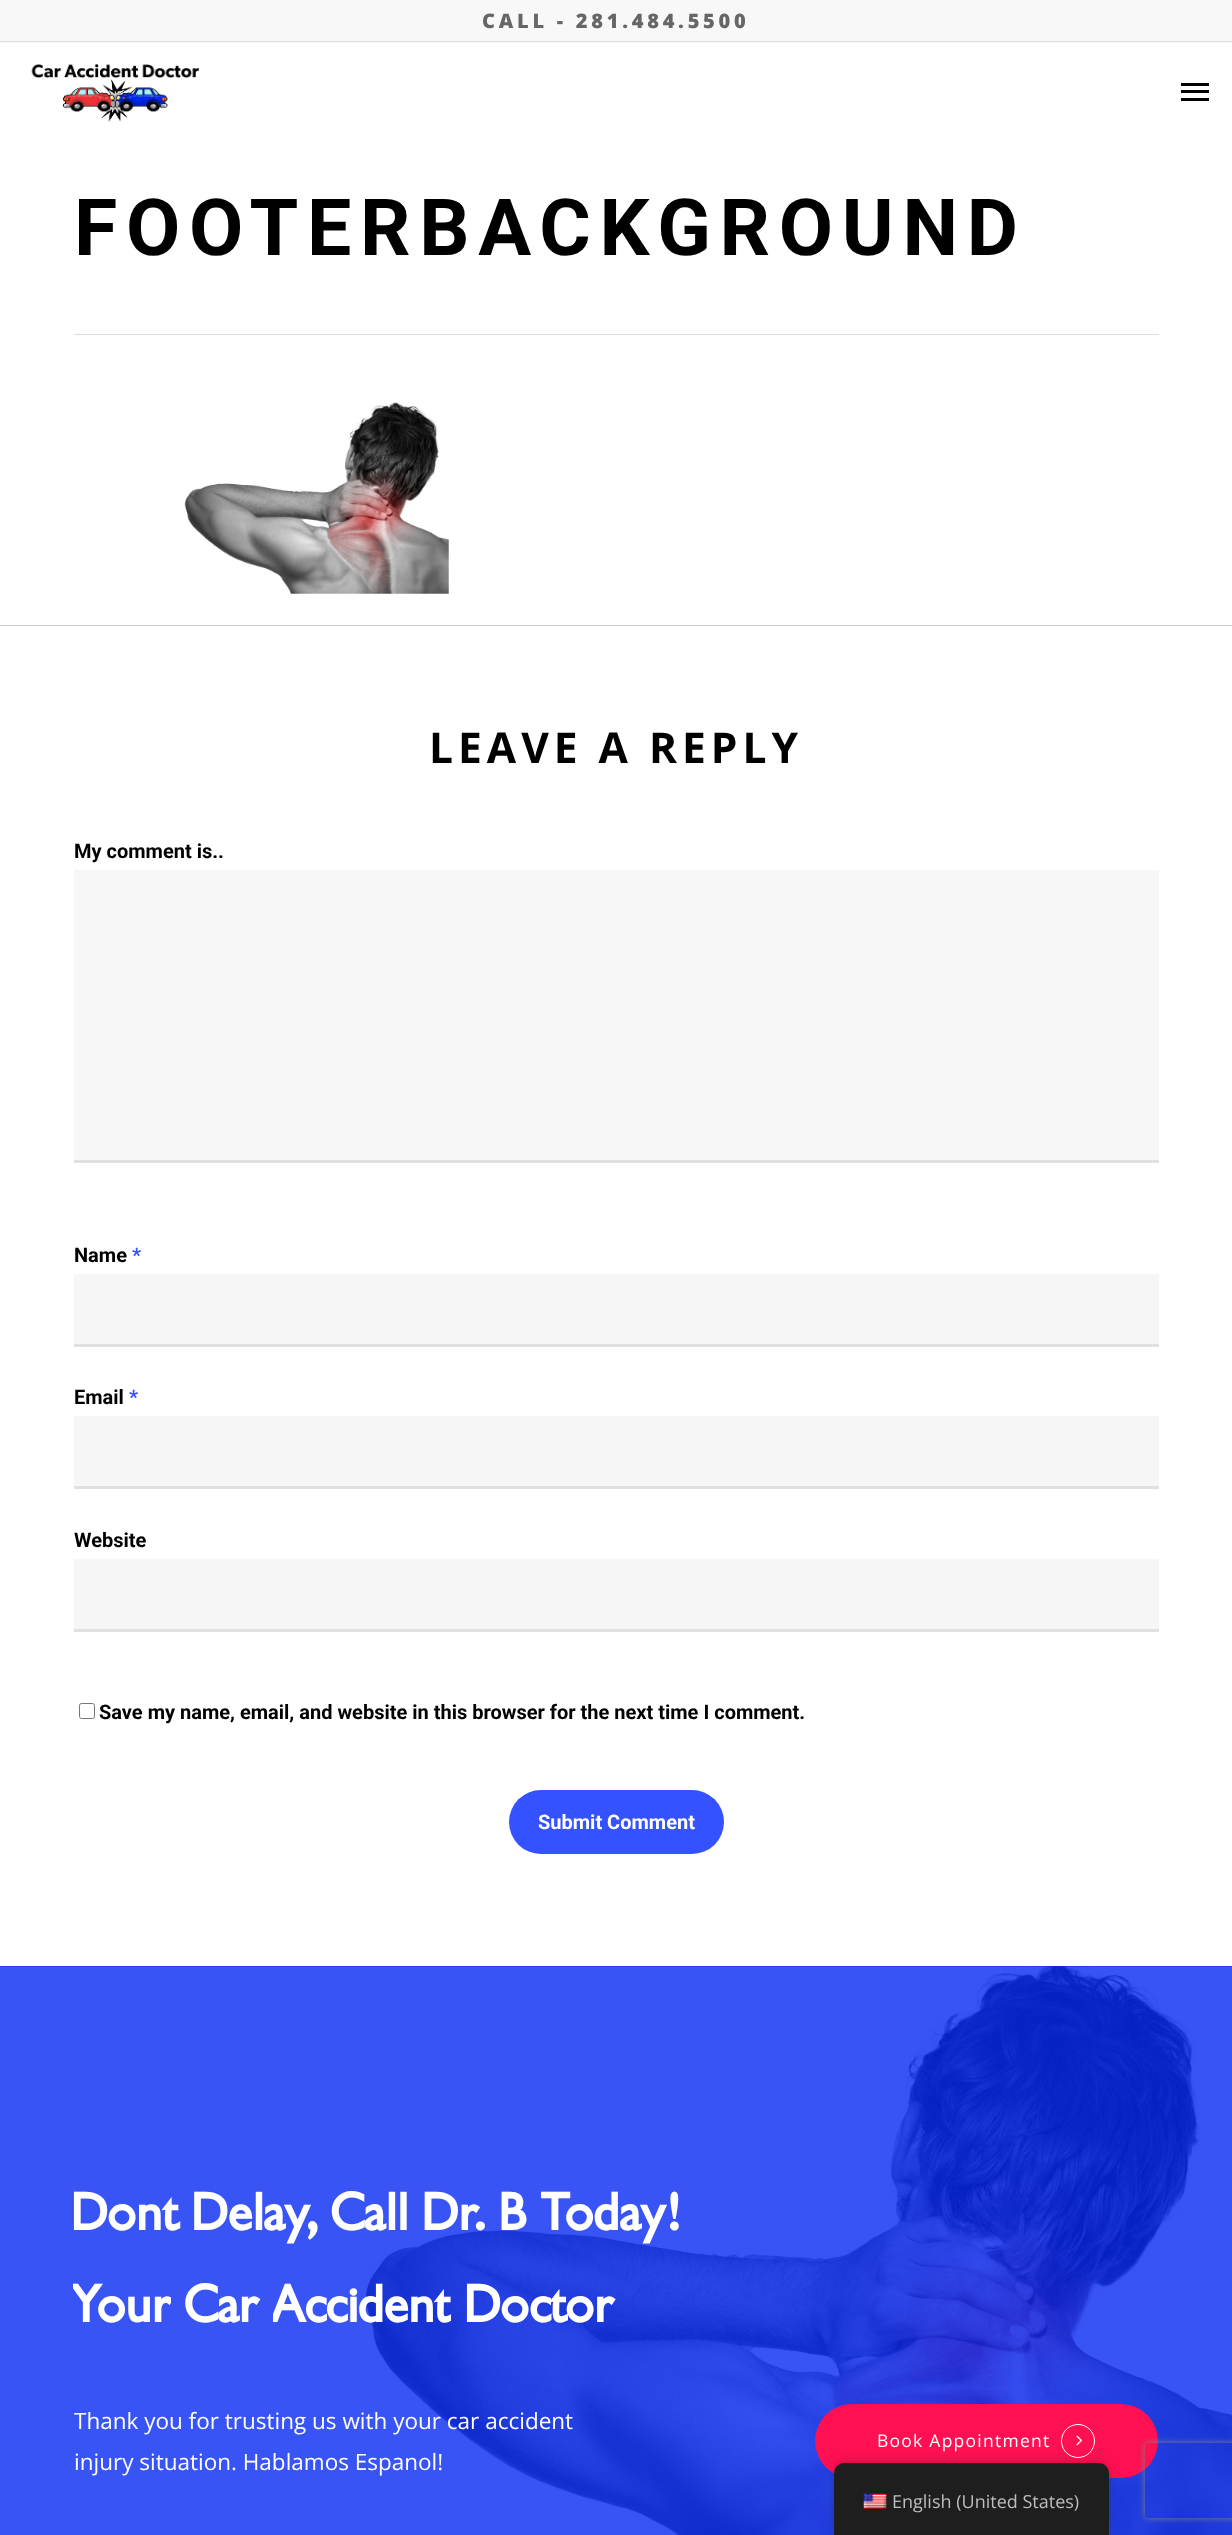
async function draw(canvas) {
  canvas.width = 1232
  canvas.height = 2535
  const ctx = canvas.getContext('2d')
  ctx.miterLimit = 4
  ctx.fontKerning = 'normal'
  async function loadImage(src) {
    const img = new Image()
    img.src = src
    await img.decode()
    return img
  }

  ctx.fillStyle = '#fff'
  ctx.fillRect(0, 0, 1232, 2535)
  ctx.fillStyle = '#f8f8f8'
  ctx.fillRect(0, 0, 1232, 43)
  ctx.fillStyle = '#dfdfdf'
  ctx.fillRect(0, 41, 1232, 1)
  ctx.letterSpacing = '3.75px'
  ctx.font = '800 20px Open Sans'
  ctx.fillStyle = '#666'
  ctx.fillText('CALL - 281.484.5500', 482, 28)
  ctx.drawImage(await loadImage('image0.png'), 31, 64, 169, 58)
  ctx.fillStyle = '#000'
  ctx.fillRect(1181, 83, 28, 3)
  ctx.fillRect(1181, 98, 28, 3)
  ctx.fillRect(1181, 90, 28, 3)
  ctx.fillStyle = '#ddd'
  ctx.fillRect(74, 334, 1085, 1)
  ctx.letterSpacing = '8.75px'
  ctx.font = 'bold 78.75px Roboto'
  ctx.fillStyle = '#000'
  ctx.fillText('FOOTERBACKGROUND', 74, 255)
  ctx.drawImage(await loadImage('image1.png'), 184, 402, 265, 192)
  ctx.fillStyle = '#ccc'
  ctx.fillRect(0, 625, 1232, 1)
  ctx.letterSpacing = '5px'
  ctx.font = 'bold 42.5px Open Sans'
  ctx.fillStyle = '#000'
  ctx.fillText('LEAVE A REPLY', 429, 763)
  ctx.letterSpacing = '0px'
  ctx.font = 'bold 20px Roboto'
  ctx.fillText('My comment is..', 74, 858)
  ctx.fillStyle = '#f7f7f7'
  ctx.fillRect(74, 870, 1085, 290)
  ctx.fillStyle = '#e0e0e0'
  ctx.fillRect(74, 1160, 1085, 3)
  ctx.fillStyle = '#000'
  ctx.fillText('Name', 74, 1262)
  ctx.fillStyle = '#3452ff'
  ctx.fillText('*', 132, 1262)
  ctx.fillStyle = '#f6f6f6'
  ctx.fillRect(74, 1274, 1085, 70)
  ctx.fillStyle = '#e0e0e0'
  ctx.fillRect(74, 1344, 1085, 3)
  ctx.fillStyle = '#000'
  ctx.fillText('Email', 74, 1404)
  ctx.fillStyle = '#3452ff'
  ctx.fillText('*', 129, 1404)
  ctx.fillStyle = '#f6f6f6'
  ctx.fillRect(74, 1416, 1085, 70)
  ctx.fillStyle = '#e0e0e0'
  ctx.fillRect(74, 1486, 1085, 3)
  ctx.fillStyle = '#000'
  ctx.fillText('Website', 74, 1547)
  ctx.fillStyle = '#f6f6f6'
  ctx.fillRect(74, 1559, 1085, 70)
  ctx.fillStyle = '#e0e0e0'
  ctx.fillRect(74, 1629, 1085, 3)
  ctx.beginPath()
  ctx.roundRect(79.5, 1703.5, 15, 15, 2)
  ctx.strokeStyle = '#767676'
  ctx.stroke()
  ctx.fillStyle = '#000'
  ctx.fillText('Save my name, email, and website in this browser for the next time I comment.', 99, 1719)
  ctx.fillStyle = '#3452ff'
  ctx.beginPath()
  ctx.roundRect(509, 1790, 215, 64, 32)
  ctx.fill()
  ctx.fillStyle = '#fff'
  ctx.fillText('Submit Comment', 538, 1829)
  ctx.fillStyle = '#0629f3'
  ctx.fillRect(0, 1966, 1232, 1)
  ctx.drawImage(await loadImage('image2.png'), 0, 1966, 1232, 569)
  ctx.font = 'bold 52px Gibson'
  ctx.fillStyle = '#fff'
  ctx.fillText('Dont Delay, Call Dr. B', 72, 2230)
  ctx.save()
  ctx.beginPath()
  ctx.rect(541, 2184, 139, 62)
  ctx.clip()
  ctx.fillText('Today!', 541, 2230)
  ctx.restore()
  ctx.save()
  ctx.beginPath()
  ctx.rect(73, 2276, 98, 63)
  ctx.clip()
  ctx.fillText('Your', 72, 2322)
  ctx.restore()
  ctx.fillText('Car', 185, 2322)
  ctx.save()
  ctx.beginPath()
  ctx.rect(273, 2276, 178, 63)
  ctx.clip()
  ctx.fillText('Accident', 272, 2322)
  ctx.restore()
  ctx.fillText('Doctor', 465, 2322)
  ctx.font = '22.5px Open Sans'
  ctx.fillText('Thank you for trusting us with your car accident', 74, 2429)
  ctx.fillText('injury situation. Hablamos Espanol!', 74, 2470)
  ctx.fillStyle = '#ff1053'
  ctx.beginPath()
  ctx.roundRect(815, 2404, 343, 74, 37)
  ctx.fill()
  ctx.letterSpacing = '1.25px'
  ctx.font = '17.5px Open Sans'
  ctx.fillStyle = '#fff'
  ctx.fillText('Book Appointment', 877, 2447)
  ctx.drawImage(await loadImage('image3.png'), 1076, 2435, 6, 11)
  ctx.beginPath()
  ctx.arc(1078, 2441, 16.5, 0, 2 * Math.PI)
  ctx.strokeStyle = '#fff'
  ctx.stroke()
  ctx.save()
  ctx.beginPath()
  ctx.moveTo(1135, 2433)
  ctx.lineTo(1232, 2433)
  ctx.lineTo(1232, 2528)
  ctx.lineTo(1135, 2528)
  ctx.closePath()
  ctx.moveTo(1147.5, 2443)
  ctx.lineTo(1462.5, 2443)
  ctx.bezierCurveTo(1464, 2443, 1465, 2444, 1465, 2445.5)
  ctx.lineTo(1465, 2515.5)
  ctx.bezierCurveTo(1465, 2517, 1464, 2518, 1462.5, 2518)
  ctx.lineTo(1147.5, 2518)
  ctx.bezierCurveTo(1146, 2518, 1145, 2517, 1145, 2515.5)
  ctx.lineTo(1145, 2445.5)
  ctx.bezierCurveTo(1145, 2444, 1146, 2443, 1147.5, 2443)
  ctx.closePath()
  ctx.clip('evenodd')
  ctx.fillStyle = '#808080'
  ctx.filter = 'blur(3px)'
  ctx.beginPath()
  ctx.roundRect(1145, 2443, 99, 75, 2.5)
  ctx.fill()
  ctx.filter = 'none'
  ctx.restore()
  ctx.fillStyle = '#00000040'
  ctx.filter = 'blur(5px)'
  ctx.beginPath()
  ctx.roundRect(834, 2463, 275, 72, 10)
  ctx.fill()
  ctx.filter = 'none'
  ctx.fillStyle = '#1e1e1e'
  ctx.beginPath()
  ctx.roundRect(834, 2463, 275, 72, [10, 10, 0, 0])
  ctx.fill()
  ctx.drawImage(await loadImage('image4.png'), 863, 2493, 24, 16)
  ctx.letterSpacing = '0px'
  ctx.font = '18px Open Sans'
  ctx.fillStyle = '#bdbdbd'
  ctx.fillText('English (United States)', 892, 2508)
}

draw(document.querySelector('canvas'))
